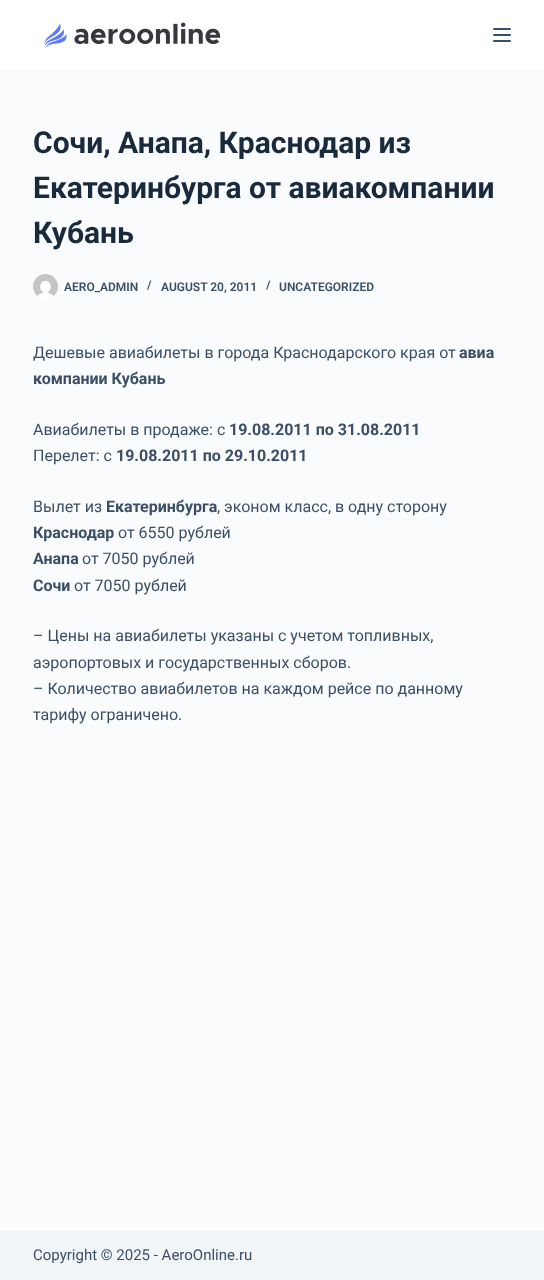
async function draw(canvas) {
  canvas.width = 544
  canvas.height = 1280
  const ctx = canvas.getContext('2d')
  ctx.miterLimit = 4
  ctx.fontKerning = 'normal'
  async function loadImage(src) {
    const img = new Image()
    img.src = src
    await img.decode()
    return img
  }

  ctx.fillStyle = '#fafbfc'
  ctx.fillRect(0, 0, 544, 1280)
  ctx.fillStyle = '#fff'
  ctx.fillRect(0, 0, 544, 70)
  ctx.drawImage(await loadImage('image0.png'), 44, 22, 177, 26)
  ctx.fillStyle = '#3a4f66'
  ctx.beginPath()
  ctx.roundRect(493, 28, 18, 2, 1)
  ctx.fill()
  ctx.beginPath()
  ctx.roundRect(493, 34, 18, 2, 1)
  ctx.fill()
  ctx.beginPath()
  ctx.roundRect(493, 40, 18, 2, 1)
  ctx.fill()
  ctx.font = 'bold 30px Roboto'
  ctx.fillStyle = '#192a3d'
  ctx.fillText('Сочи, Анапа, Краснодар из', 33, 153)
  ctx.fillText('Екатеринбурга от авиакомпании', 33, 198)
  ctx.fillText('Кубань', 33, 243)
  ctx.drawImage(await loadImage('image1.png'), 33, 274, 25, 25)
  ctx.font = '600 12px Roboto'
  ctx.fillStyle = '#3a4f66'
  ctx.fillText('AERO_ADMIN', 64, 291)
  ctx.fillText('/', 147, 289)
  ctx.fillText('AUGUST 20, 2011', 161, 291)
  ctx.fillText('/', 266, 289)
  ctx.fillText('UNCATEGORIZED', 279, 291)
  ctx.font = '16px Roboto'
  ctx.fillText('Дешевые авиабилеты в города Краснодарского края от', 33, 358)
  ctx.font = 'bold 16px Roboto'
  ctx.fillText('авиа', 459, 358)
  ctx.fillText('компании Кубань', 33, 384)
  ctx.font = '16px Roboto'
  ctx.fillText('Авиабилеты в продаже: с', 33, 435)
  ctx.font = 'bold 16px Roboto'
  ctx.fillText('19.08.2011 по 31.08.2011', 229, 435)
  ctx.font = '16px Roboto'
  ctx.fillText('Перелет: с', 33, 461)
  ctx.font = 'bold 16px Roboto'
  ctx.fillText('19.08.2011 по 29.10.2011', 116, 461)
  ctx.font = '16px Roboto'
  ctx.fillText('Вылет из', 33, 512)
  ctx.font = 'bold 16px Roboto'
  ctx.fillText('Екатеринбурга', 106, 512)
  ctx.font = '16px Roboto'
  ctx.fillText(', эконом класс, в одну сторону', 217, 512)
  ctx.font = 'bold 16px Roboto'
  ctx.fillText('Краснодар', 33, 538)
  ctx.font = '16px Roboto'
  ctx.fillText('от 6550 рублей', 118, 538)
  ctx.font = 'bold 16px Roboto'
  ctx.fillText('Анапа', 33, 564)
  ctx.font = '16px Roboto'
  ctx.fillText('от 7050 рублей', 82, 564)
  ctx.font = 'bold 16px Roboto'
  ctx.fillText('Сочи', 33, 591)
  ctx.font = '16px Roboto'
  ctx.fillText('от 7050 рублей', 74, 591)
  ctx.fillText('– Цены на авиабилеты указаны с учетом топливных,', 33, 641)
  ctx.fillText('аэропортовых и государственных сборов.', 33, 668)
  ctx.fillText('– Количество авиабилетов на каждом рейсе по данному', 33, 694)
  ctx.fillText('тарифу ограничено.', 33, 720)
  ctx.fillStyle = '#f2f5f7'
  ctx.fillRect(0, 1231, 544, 49)
  ctx.font = '15px Roboto'
  ctx.fillStyle = '#3a4f66'
  ctx.fillText('Copyright © 2025 - AeroOnline.ru', 33, 1260)
}

draw(document.querySelector('canvas'))
